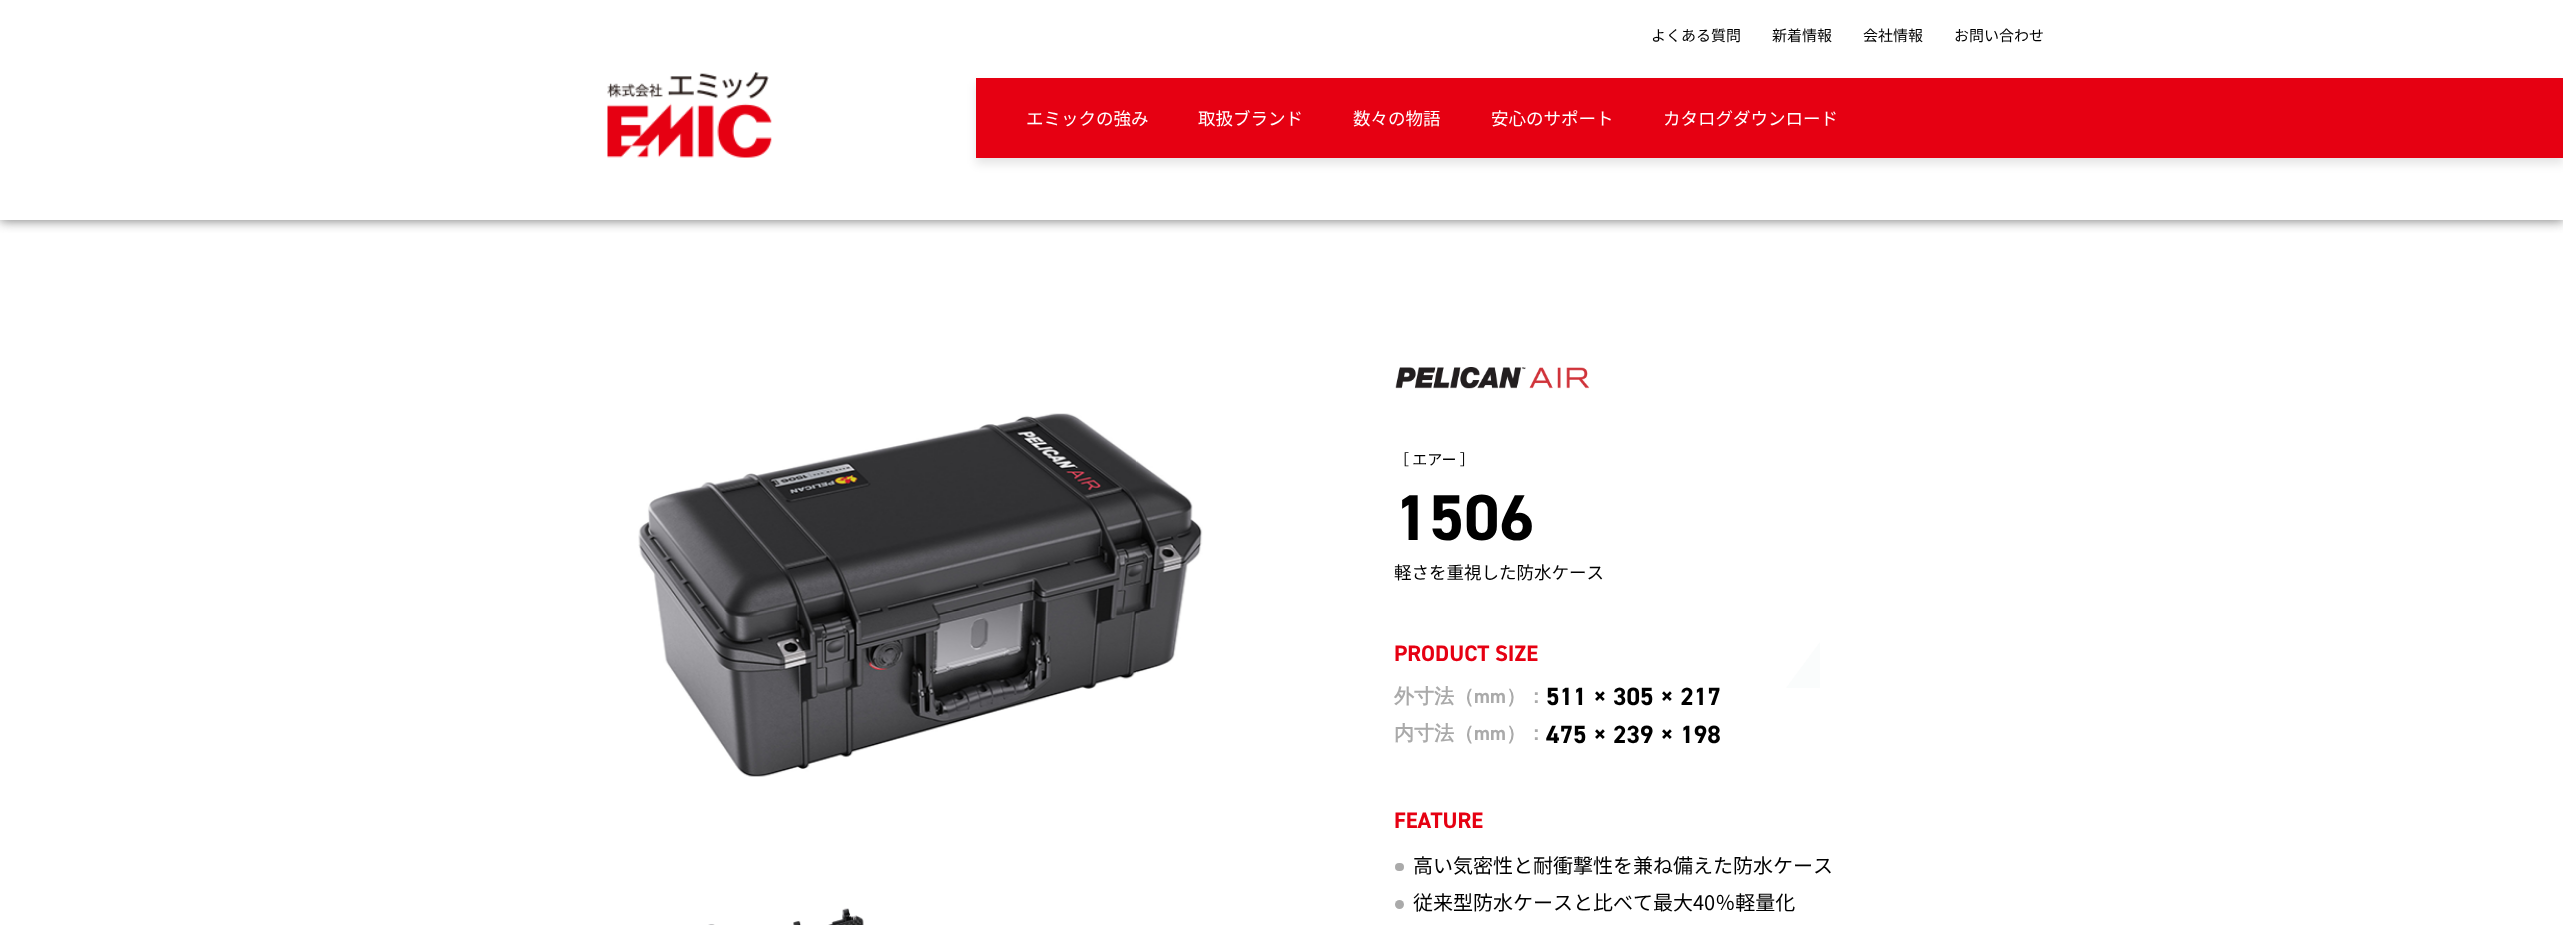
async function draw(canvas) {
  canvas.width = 2563
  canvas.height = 925
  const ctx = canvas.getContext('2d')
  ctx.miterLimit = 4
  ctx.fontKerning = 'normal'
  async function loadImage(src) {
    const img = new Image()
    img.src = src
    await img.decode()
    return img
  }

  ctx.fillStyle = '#fff'
  ctx.fillRect(0, 0, 2563, 925)
  ctx.save()
  ctx.beginPath()
  ctx.rect(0, 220, 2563, 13)
  ctx.clip()
  ctx.fillStyle = '#808080'
  ctx.filter = 'blur(6px)'
  ctx.beginPath()
  ctx.rect(0, 1, 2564, 220)
  ctx.fill()
  ctx.filter = 'none'
  ctx.restore()
  ctx.drawImage(await loadImage('image0.png'), 607, 72, 165, 86)
  ctx.font = '100 15px Noto Sans JP'
  ctx.fillStyle = '#000'
  ctx.fillText('よくある質問', 1651, 41)
  ctx.fillText('新着情報', 1772, 41)
  ctx.fillText('会社情報', 1863, 41)
  ctx.fillText('お問い合わせ', 1954, 41)
  ctx.fillStyle = '#0000001a'
  ctx.filter = 'blur(5px)'
  ctx.beginPath()
  ctx.rect(976, 84, 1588, 80)
  ctx.fill()
  ctx.filter = 'none'
  ctx.fillStyle = '#e60012'
  ctx.fillRect(976, 78, 1587, 80)
  ctx.font = '100 17.5px Noto Sans JP'
  ctx.fillStyle = '#fff'
  ctx.fillText('エミックの強み', 1026, 125)
  ctx.fillText('取扱ブランド', 1198, 125)
  ctx.fillText('数々の物語', 1353, 125)
  ctx.fillText('安心のサポート', 1491, 125)
  ctx.fillText('カタログダウンロード', 1663, 125)
  ctx.drawImage(await loadImage('image1.png'), 638, 413, 565, 364)
  ctx.drawImage(await loadImage('image2.png'), 708, 924, 7, 1)
  ctx.drawImage(await loadImage('image3.png'), 793, 908, 71, 17)
  ctx.drawImage(await loadImage('image4.png'), 1395, 367, 195, 22)
  ctx.font = '100 15px Noto Sans JP'
  ctx.fillStyle = '#000'
  ctx.fillText('［ エアー ］', 1394, 465)
  ctx.font = 'bold 65px "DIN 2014"'
  ctx.fillText('1506', 1394, 540)
  ctx.font = '100 17.5px Noto Sans JP'
  ctx.fillText('軽さを重視した防水ケース', 1394, 579)
  ctx.font = 'bold 22.5px "DIN 2014"'
  ctx.fillStyle = '#e60012'
  ctx.fillText('PRODUCT SIZE', 1394, 661)
  ctx.fillStyle = '#fafcfc'
  ctx.beginPath()
  ctx.moveTo(1820, 642)
  ctx.lineTo(1820, 688)
  ctx.lineTo(1786, 688)
  ctx.closePath()
  ctx.fill()
  ctx.font = 'bold 20px WenQuanYi Zen Hei'
  ctx.fillStyle = '#aaa'
  ctx.fillText('外寸法（', 1394, 703)
  ctx.font = 'bold 20px "DIN 2014"'
  ctx.fillText('mm', 1474, 703)
  ctx.font = 'bold 20px WenQuanYi Zen Hei'
  ctx.fillText('）：', 1506, 703)
  ctx.font = 'bold 25px "DIN 2014"'
  ctx.fillStyle = '#000'
  ctx.fillText('511 × 305 × 217', 1546, 705)
  ctx.font = 'bold 20px WenQuanYi Zen Hei'
  ctx.fillStyle = '#aaa'
  ctx.fillText('内寸法（', 1394, 740)
  ctx.font = 'bold 20px "DIN 2014"'
  ctx.fillText('mm', 1474, 740)
  ctx.font = 'bold 20px WenQuanYi Zen Hei'
  ctx.fillText('）：', 1506, 740)
  ctx.font = 'bold 25px "DIN 2014"'
  ctx.fillStyle = '#000'
  ctx.fillText('475 × 239 × 198', 1546, 743)
  ctx.font = 'bold 22.5px "DIN 2014"'
  ctx.fillStyle = '#e60012'
  ctx.fillText('FEATURE', 1394, 828)
  ctx.fillStyle = '#aaa'
  ctx.beginPath()
  ctx.roundRect(1395, 863, 9, 8, 4)
  ctx.fill()
  ctx.font = '100 20px Noto Sans JP'
  ctx.fillStyle = '#000'
  ctx.fillText('高い気密性と耐衝撃性を兼ね備えた防水ケース', 1413, 873)
  ctx.fillStyle = '#aaa'
  ctx.beginPath()
  ctx.arc(1399.5, 904.5, 4.5, 0, 2 * Math.PI)
  ctx.fill()
  ctx.fillStyle = '#000'
  ctx.fillText('従来型防水ケースと比べて最大40％軽量化', 1413, 910)
}

draw(document.querySelector('canvas'))
